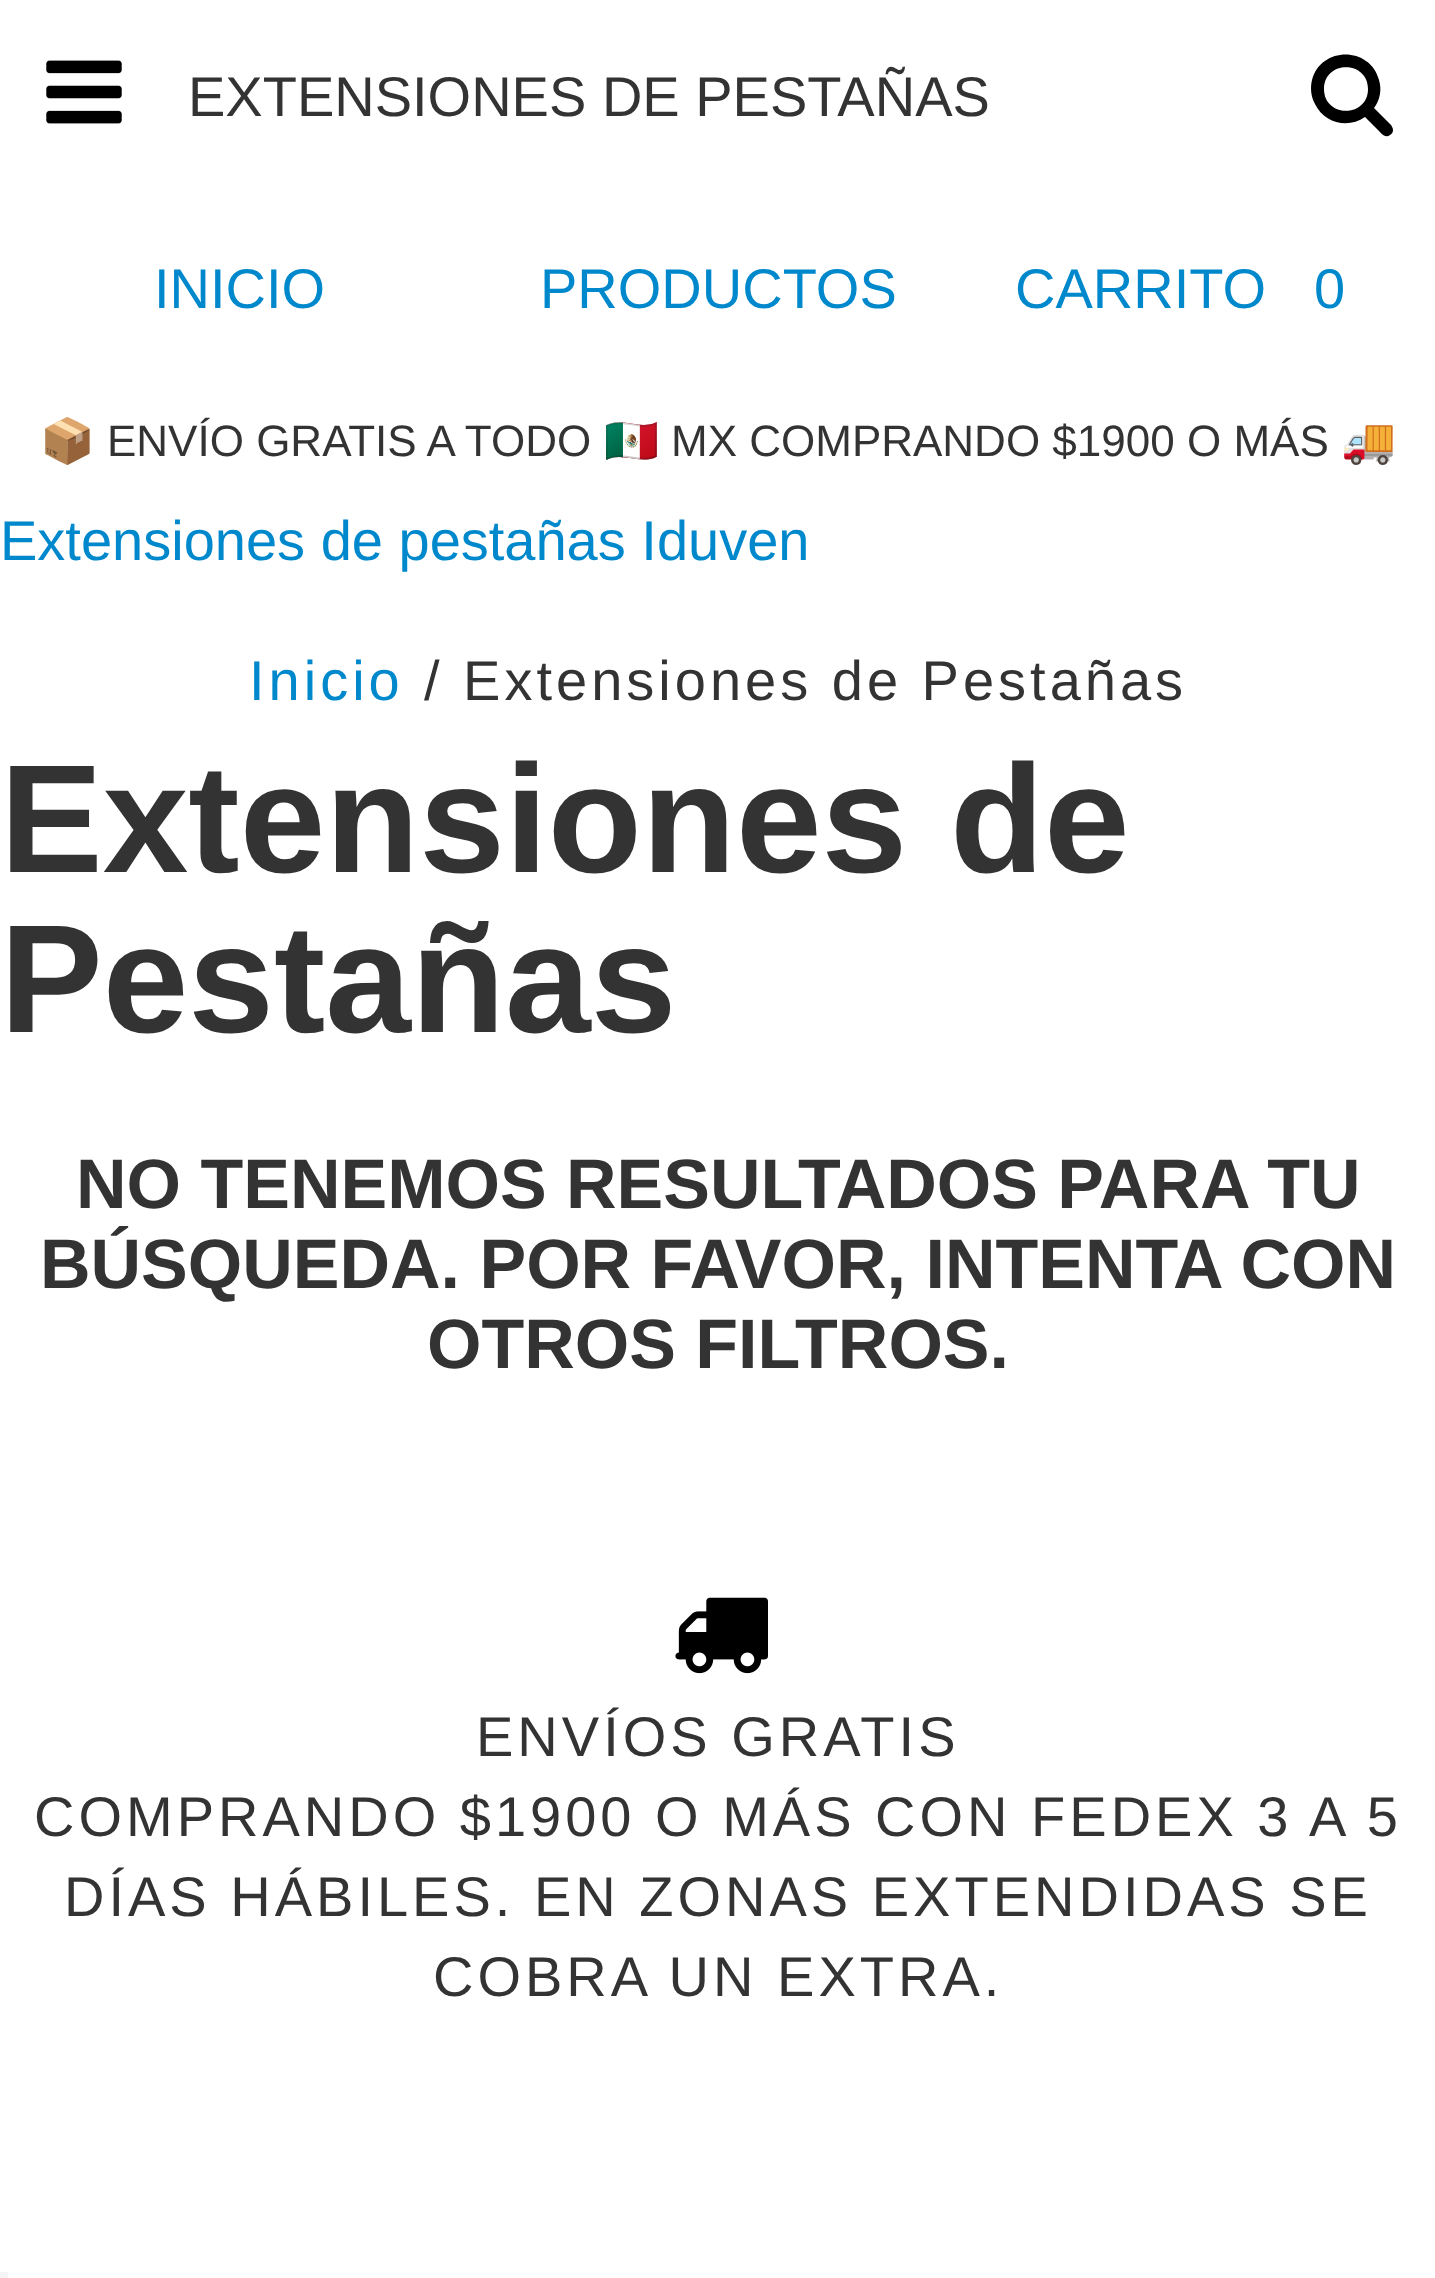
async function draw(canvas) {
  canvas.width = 1435
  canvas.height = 2278
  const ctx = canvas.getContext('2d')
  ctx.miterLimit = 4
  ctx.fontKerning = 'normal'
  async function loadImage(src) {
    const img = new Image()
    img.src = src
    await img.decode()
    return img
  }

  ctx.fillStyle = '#fff'
  ctx.fillRect(0, 0, 1435, 2278)
  ctx.drawImage(await loadImage('image0.png'), 46, 60, 76, 64)
  ctx.font = '56px Liberation Sans'
  ctx.fillStyle = '#333'
  ctx.fillText('EXTENSIONES DE PESTAÑAS', 188, 116)
  ctx.fillStyle = '#000'
  ctx.beginPath()
  ctx.moveTo(1368, 89)
  ctx.bezierCurveTo(1368, 60, 1324, 60, 1324, 89)
  ctx.bezierCurveTo(1324, 118, 1368, 118, 1368, 89)
  ctx.closePath()
  ctx.moveTo(1393, 130)
  ctx.bezierCurveTo(1393, 132, 1392, 134, 1390, 135)
  ctx.bezierCurveTo(1385, 139, 1380, 132, 1377, 129)
  ctx.lineTo(1365, 117)
  ctx.bezierCurveTo(1348, 129, 1324, 123, 1315, 104)
  ctx.bezierCurveTo(1311, 97, 1310, 88, 1312, 80)
  ctx.bezierCurveTo(1321, 46, 1370, 46, 1379, 80)
  ctx.bezierCurveTo(1382, 90, 1380, 100, 1374, 108)
  ctx.lineTo(1391, 125)
  ctx.bezierCurveTo(1392, 127, 1393, 128, 1393, 130)
  ctx.closePath()
  ctx.fill()
  ctx.fillStyle = '#08c'
  ctx.fillText('INICIO', 154, 308)
  ctx.fillText('PRODUCTOS', 540, 308)
  ctx.fillText('CARRITO', 1015, 308)
  ctx.fillText('0', 1314, 308)
  ctx.font = '44px Noto Color Emoji'
  ctx.fillStyle = '#333'
  ctx.fillText('📦', 40, 456)
  ctx.font = '44px Liberation Sans'
  ctx.fillText('ENVÍO GRATIS A TODO', 107, 456)
  ctx.font = '44px Noto Color Emoji'
  ctx.fillText('🇲🇽', 604, 456)
  ctx.font = '44px Liberation Sans'
  ctx.fillText('MX COMPRANDO $1900 O MÁS', 671, 456)
  ctx.font = '44px Noto Color Emoji'
  ctx.fillText('🚚', 1341, 456)
  ctx.font = '56px Liberation Sans'
  ctx.fillStyle = '#08c'
  ctx.fillText('Extensiones de pestañas Iduven', 0, 560)
  ctx.letterSpacing = '4px'
  ctx.fillText('Inicio', 249, 700)
  ctx.fillStyle = '#333'
  ctx.fillText('/ Extensiones de Pestañas', 424, 700)
  ctx.letterSpacing = '0px'
  ctx.font = 'bold 154px Liberation Sans'
  ctx.fillText('Extensiones de', 0, 872)
  ctx.fillText('Pestañas', 0, 1032)
  ctx.font = 'bold 70px Liberation Sans'
  ctx.fillText('NO TENEMOS RESULTADOS PARA TU', 76, 1208)
  ctx.fillText('BÚSQUEDA. POR FAVOR, INTENTA CON', 40, 1288)
  ctx.fillText('OTROS FILTROS.', 427, 1368)
  ctx.drawImage(await loadImage('image1.png'), 675, 1597, 93, 77)
  ctx.letterSpacing = '4px'
  ctx.font = '56px Liberation Sans'
  ctx.fillText('ENVÍOS GRATIS', 476, 1756)
  ctx.fillText('COMPRANDO $1900 O MÁS CON FEDEX 3 A 5', 34, 1836)
  ctx.fillText('DÍAS HÁBILES. EN ZONAS EXTENDIDAS SE', 64, 1916)
  ctx.fillText('COBRA UN EXTRA.', 433, 1996)
  ctx.fillStyle = '#f5f5f5'
  ctx.fillRect(0, 2272, 8, 6)
}

draw(document.querySelector('canvas'))
